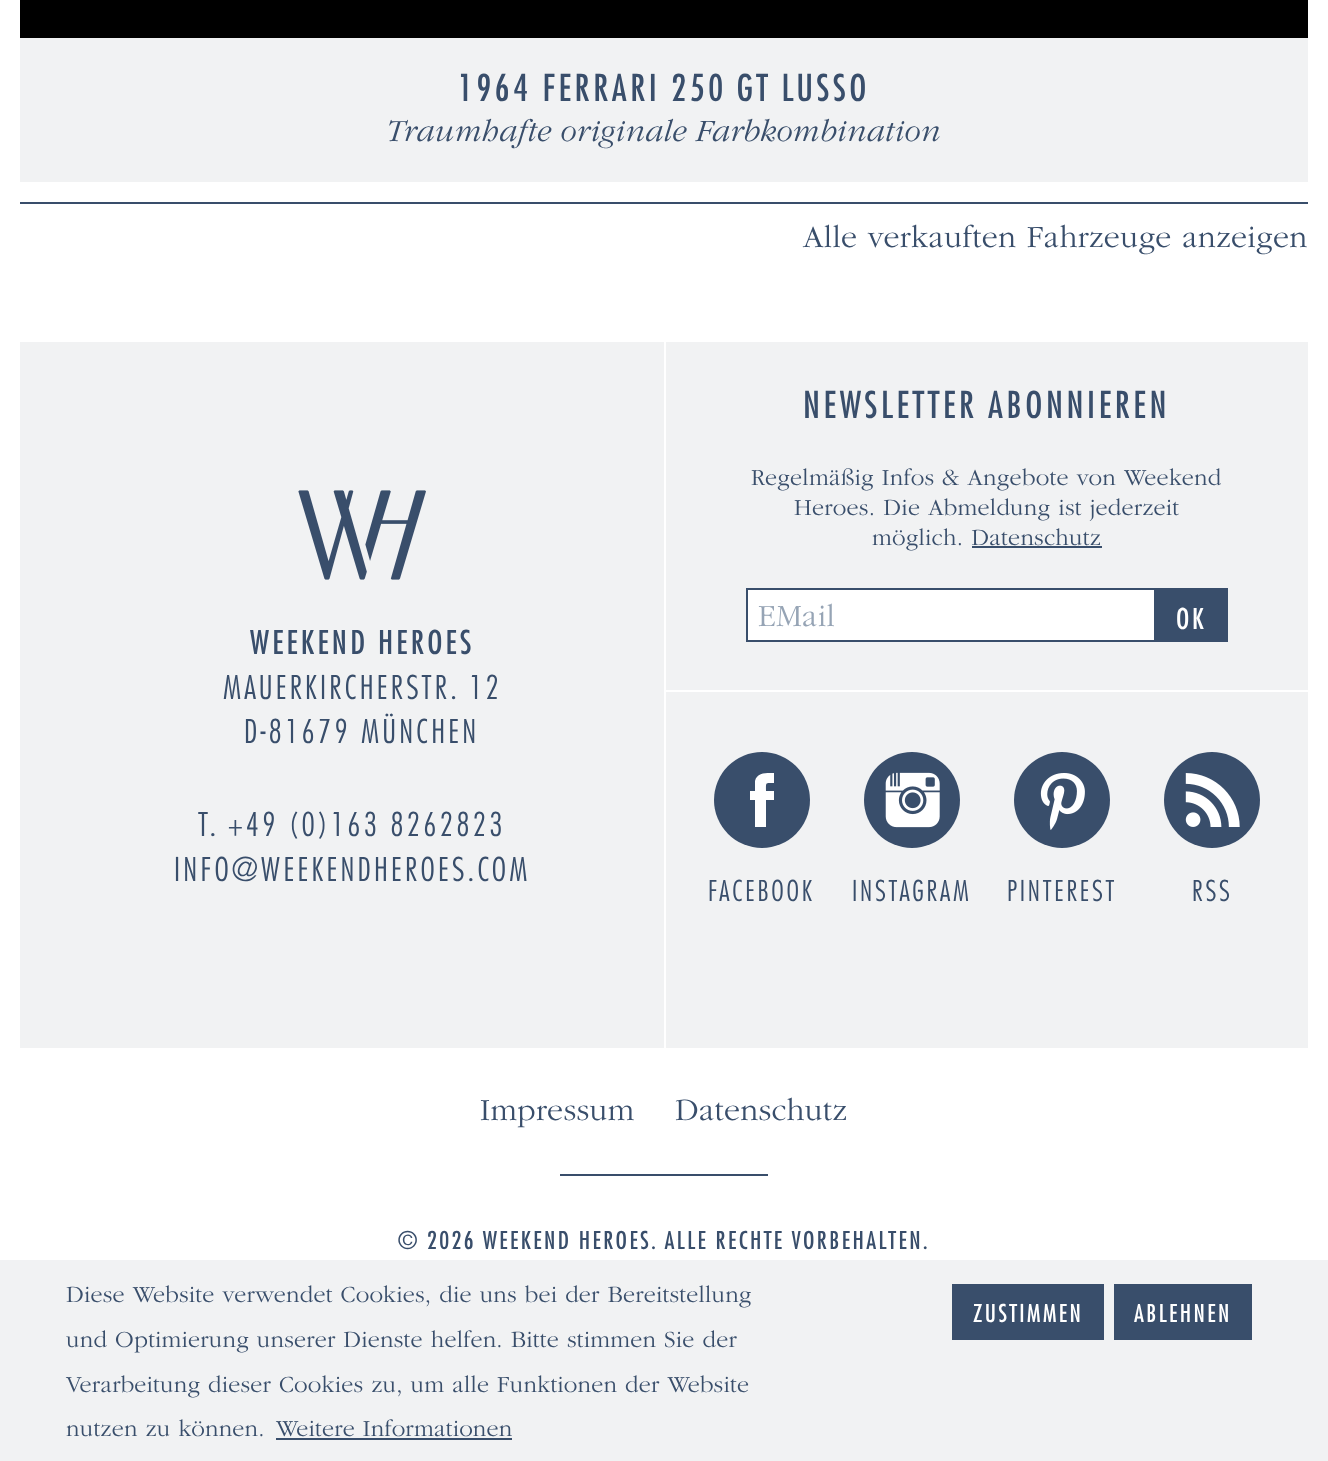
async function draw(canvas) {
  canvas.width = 1328
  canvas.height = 1461
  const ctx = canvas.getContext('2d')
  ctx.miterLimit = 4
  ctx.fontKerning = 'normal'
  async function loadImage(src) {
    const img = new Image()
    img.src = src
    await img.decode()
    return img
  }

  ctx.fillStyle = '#fff'
  ctx.fillRect(0, 0, 1328, 1461)
  ctx.fillStyle = '#000'
  ctx.fillRect(20, 0, 1288, 38)
  ctx.fillStyle = '#f1f2f3'
  ctx.fillRect(20, 38, 1288, 144)
  ctx.letterSpacing = '3.6px'
  ctx.font = '500 36px "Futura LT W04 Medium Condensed"'
  ctx.fillStyle = '#394e6b'
  ctx.fillText('1964 FERRARI 250 GT LUSSO', 458, 101)
  ctx.letterSpacing = '0.3px'
  ctx.font = '300 32px "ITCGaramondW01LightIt"'
  ctx.fillText('Traumhafte originale Farbkombination', 386, 141)
  ctx.fillRect(20, 202, 1288, 2)
  ctx.font = '300 32px "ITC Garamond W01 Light"'
  ctx.fillText('Alle verkauften Fahrzeuge anzeigen', 803, 247)
  ctx.fillStyle = '#f1f2f3'
  ctx.fillRect(20, 342, 644, 706)
  ctx.drawImage(await loadImage('image0.png'), 298, 490, 128, 90)
  ctx.letterSpacing = '3.2px'
  ctx.font = '500 32px "Futura LT W04 Medium Condensed"'
  ctx.fillStyle = '#394e6b'
  ctx.fillText('WEEKEND HEROES', 250, 654)
  ctx.font = '300 32px "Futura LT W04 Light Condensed"'
  ctx.fillText('MAUERKIRCHERSTR. 12', 223, 699)
  ctx.fillText('D-81679 MÜNCHEN', 244, 743)
  ctx.fillText('T. +49 (0)163 8262823', 198, 836)
  ctx.fillText('INFO@WEEKENDHEROES.COM', 174, 881)
  ctx.fillStyle = '#f1f2f3'
  ctx.fillRect(666, 342, 642, 706)
  ctx.fillStyle = '#fff'
  ctx.fillRect(666, 690, 642, 2)
  ctx.letterSpacing = '3.6px'
  ctx.font = '500 36px "Futura LT W04 Medium Condensed"'
  ctx.fillStyle = '#394e6b'
  ctx.fillText('NEWSLETTER ABONNIEREN', 803, 418)
  ctx.letterSpacing = '0.3px'
  ctx.font = '300 24px "ITC Garamond W01 Light"'
  ctx.fillText('Regelmäßig Infos & Angebote von Weekend', 751, 485)
  ctx.fillText('Heroes. Die Abmeldung ist jederzeit', 794, 515)
  ctx.fillText('möglich. Datenschutz', 872, 545)
  ctx.fillRect(972, 546, 130, 2)
  ctx.fillStyle = '#fff'
  ctx.beginPath()
  ctx.rect(747, 589, 408, 52)
  ctx.fill()
  ctx.strokeStyle = '#394e6b'
  ctx.lineWidth = 2
  ctx.stroke()
  ctx.font = '300 32px "ITC Garamond W01 Light"'
  ctx.fillStyle = '#96a4b5'
  ctx.fillText('EMail', 758, 626)
  ctx.fillStyle = '#394e6b'
  ctx.fillRect(1156, 588, 72, 54)
  ctx.letterSpacing = '2.75px'
  ctx.font = '500 28px "Futura LT W04 Medium Condensed"'
  ctx.fillStyle = '#fff'
  ctx.fillText('OK', 1176, 629)
  ctx.fillStyle = '#394e6b'
  ctx.beginPath()
  ctx.arc(762, 800, 48, 0, 2 * Math.PI)
  ctx.fill()
  ctx.fillStyle = '#fff'
  ctx.beginPath()
  ctx.moveTo(774, 773)
  ctx.bezierCurveTo(767, 773, 757, 772, 755, 781)
  ctx.lineTo(755, 791)
  ctx.lineTo(750, 791)
  ctx.lineTo(750, 800)
  ctx.lineTo(755, 800)
  ctx.lineTo(755, 827)
  ctx.lineTo(766, 827)
  ctx.lineTo(766, 800)
  ctx.lineTo(774, 800)
  ctx.lineTo(774, 791)
  ctx.lineTo(766, 791)
  ctx.bezierCurveTo(766, 782, 765, 783, 774, 783)
  ctx.closePath()
  ctx.fill()
  ctx.font = '300 28px "Futura LT W04 Light Condensed"'
  ctx.fillStyle = '#394e6b'
  ctx.fillText('FACEBOOK', 708, 901)
  ctx.beginPath()
  ctx.arc(912, 800, 48, 0, 2 * Math.PI)
  ctx.fill()
  ctx.drawImage(await loadImage('image1.png'), 885, 772, 55, 56)
  ctx.fillText('INSTAGRAM', 852, 901)
  ctx.beginPath()
  ctx.arc(1062, 800, 48, 0, 2 * Math.PI)
  ctx.fill()
  ctx.drawImage(await loadImage('image2.png'), 1040, 773, 45, 57)
  ctx.fillText('PINTEREST', 1007, 901)
  ctx.beginPath()
  ctx.arc(1212, 800, 48, 0, 2 * Math.PI)
  ctx.fill()
  ctx.drawImage(await loadImage('image3.png'), 1185, 773, 55, 54)
  ctx.fillText('RSS', 1192, 901)
  ctx.letterSpacing = '0.3px'
  ctx.font = '300 32px "ITC Garamond W01 Light"'
  ctx.fillText('Impressum', 480, 1120)
  ctx.fillText('Datenschutz', 675, 1120)
  ctx.fillRect(560, 1174, 208, 2)
  ctx.letterSpacing = '2.4px'
  ctx.font = '500 24px "Futura LT W04 Medium Condensed"'
  ctx.fillText('© 2026 WEEKEND HEROES. ALLE RECHTE VORBEHALTEN.', 398, 1249)
  ctx.fillStyle = '#f1f2f3'
  ctx.fillRect(0, 1260, 1328, 201)
  ctx.letterSpacing = '0.25px'
  ctx.font = '300 24px "ITC Garamond W01 Light"'
  ctx.fillStyle = '#394e6b'
  ctx.fillText('Diese Website verwendet Cookies, die uns bei der Bereitstellung', 66, 1302)
  ctx.fillText('und Optimierung unserer Dienste helfen. Bitte stimmen Sie der', 66, 1347)
  ctx.fillText('Verarbeitung dieser Cookies zu, um alle Funktionen der Website', 66, 1392)
  ctx.fillText('nutzen zu können.', 66, 1436)
  ctx.fillText('Weitere Informationen', 276, 1436)
  ctx.fillRect(276, 1438, 236, 2)
  ctx.fillRect(952, 1284, 152, 56)
  ctx.letterSpacing = '2.4px'
  ctx.font = '500 24px "Futura LT W04 Medium Condensed"'
  ctx.fillStyle = '#fff'
  ctx.fillText('ZUSTIMMEN', 973, 1322)
  ctx.fillStyle = '#394e6b'
  ctx.fillRect(1114, 1284, 138, 56)
  ctx.fillStyle = '#fff'
  ctx.fillText('ABLEHNEN', 1134, 1322)
}

draw(document.querySelector('canvas'))
